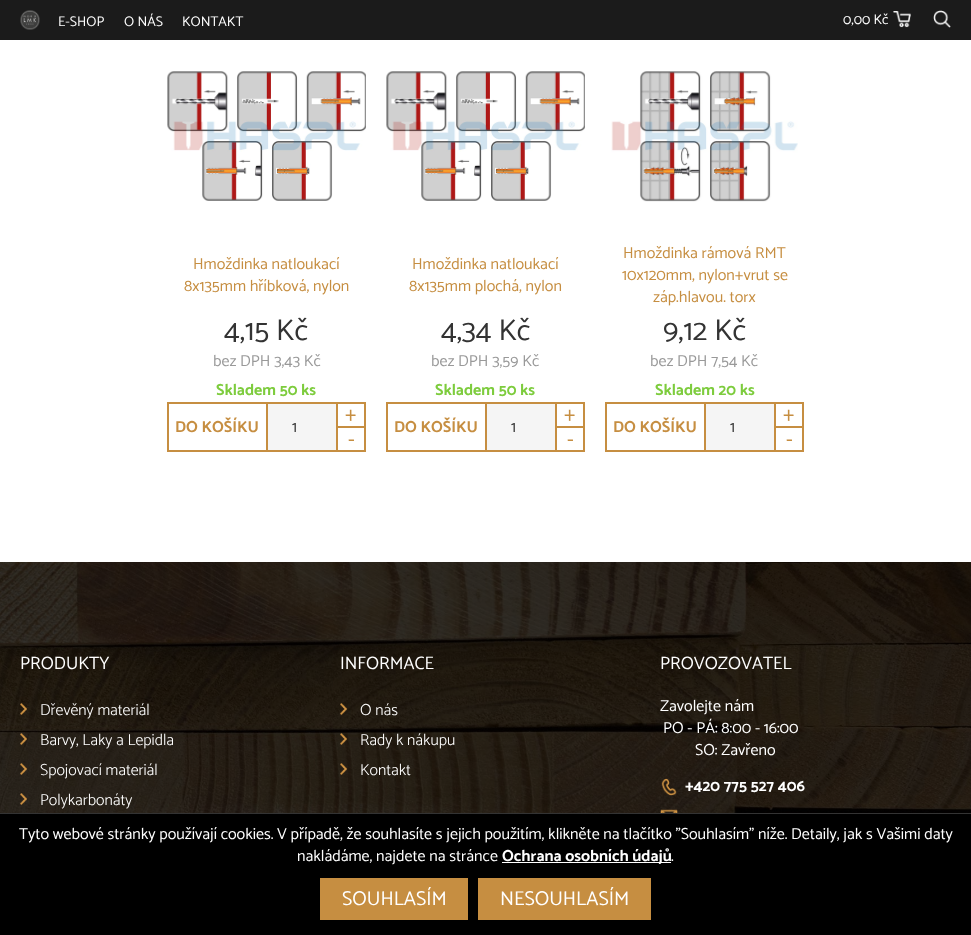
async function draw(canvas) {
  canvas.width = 971
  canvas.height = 935
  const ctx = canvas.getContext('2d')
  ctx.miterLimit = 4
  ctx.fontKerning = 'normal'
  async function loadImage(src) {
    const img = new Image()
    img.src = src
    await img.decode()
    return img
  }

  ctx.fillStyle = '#fff'
  ctx.fillRect(0, 0, 971, 935)
  ctx.fillStyle = '#1b1b1b'
  ctx.fillRect(0, 0, 971, 40)
  ctx.drawImage(await loadImage('image0.png'), 20, 10, 20, 20)
  ctx.font = '14px Catamaran'
  ctx.fillStyle = '#fff'
  ctx.fillText('E-SHOP', 58, 26)
  ctx.fillText('O NÁS', 124, 26)
  ctx.fillText('KONTAKT', 182, 26)
  ctx.fillText('0,00 Kč', 843, 24)
  ctx.drawImage(await loadImage('image1.png'), 893, 11, 18, 17)
  ctx.drawImage(await loadImage('image2.png'), 933, 10, 18, 18)
  ctx.drawImage(await loadImage('image3.png'), 167, 71, 199, 130)
  ctx.font = '16px Catamaran'
  ctx.fillStyle = '#c68e41'
  ctx.fillText('Hmoždinka natloukací', 193, 269)
  ctx.fillText('8x135mm hříbková, nylon', 184, 291)
  ctx.font = '30px Catamaran'
  ctx.fillStyle = '#333'
  ctx.fillText('4,15 Kč', 224, 340)
  ctx.font = '16px Catamaran'
  ctx.fillStyle = '#999'
  ctx.fillText('bez DPH 3,43 Kč', 213, 366)
  ctx.font = 'bold 16px Catamaran'
  ctx.fillStyle = '#7dcc3d'
  ctx.fillText('Skladem 50 ks', 216, 395)
  ctx.strokeStyle = '#c68e41'
  ctx.lineWidth = 2
  ctx.strokeRect(168, 403, 197, 48)
  ctx.fillStyle = '#c68e41'
  ctx.fillText('DO KOŠÍKU', 175, 432)
  ctx.fillStyle = '#f5f5f5'
  ctx.fillRect(268, 404, 68, 46)
  ctx.fillStyle = '#c68e41'
  ctx.fillRect(266, 404, 2, 46)
  ctx.font = '16px Catamaran'
  ctx.fillStyle = '#333'
  ctx.fillText('1', 292, 432)
  ctx.fillStyle = '#c68e41'
  ctx.fillRect(336, 426, 30, 2)
  ctx.fillRect(336, 402, 2, 50)
  ctx.font = '21px Catamaran'
  ctx.fillText('+', 345, 421)
  ctx.fillText('-', 348, 446)
  ctx.drawImage(await loadImage('image3.png'), 386, 71, 199, 130)
  ctx.font = '16px Catamaran'
  ctx.fillText('Hmoždinka natloukací', 412, 269)
  ctx.fillText('8x135mm plochá, nylon', 409, 291)
  ctx.font = '30px Catamaran'
  ctx.fillStyle = '#333'
  ctx.fillText('4,34 Kč', 441, 340)
  ctx.font = '16px Catamaran'
  ctx.fillStyle = '#999'
  ctx.fillText('bez DPH 3,59 Kč', 431, 366)
  ctx.font = 'bold 16px Catamaran'
  ctx.fillStyle = '#7dcc3d'
  ctx.fillText('Skladem 50 ks', 435, 395)
  ctx.strokeRect(387, 403, 197, 48)
  ctx.fillStyle = '#c68e41'
  ctx.fillText('DO KOŠÍKU', 394, 432)
  ctx.fillStyle = '#f5f5f5'
  ctx.fillRect(487, 404, 68, 46)
  ctx.fillStyle = '#c68e41'
  ctx.fillRect(485, 404, 2, 46)
  ctx.font = '16px Catamaran'
  ctx.fillStyle = '#333'
  ctx.fillText('1', 511, 432)
  ctx.fillStyle = '#c68e41'
  ctx.fillRect(555, 426, 30, 2)
  ctx.fillRect(555, 402, 2, 50)
  ctx.font = '21px Catamaran'
  ctx.fillText('+', 564, 421)
  ctx.fillText('-', 567, 446)
  ctx.drawImage(await loadImage('image4.png'), 611, 71, 187, 131)
  ctx.font = '16px Catamaran'
  ctx.fillText('Hmoždinka rámová RMT', 623, 258)
  ctx.fillText('10x120mm, nylon+vrut se', 622, 280)
  ctx.fillText('záp.hlavou. torx', 653, 302)
  ctx.font = '30px Catamaran'
  ctx.fillStyle = '#333'
  ctx.fillText('9,12 Kč', 663, 340)
  ctx.font = '16px Catamaran'
  ctx.fillStyle = '#999'
  ctx.fillText('bez DPH 7,54 Kč', 650, 366)
  ctx.font = 'bold 16px Catamaran'
  ctx.fillStyle = '#7dcc3d'
  ctx.fillText('Skladem 20 ks', 655, 395)
  ctx.strokeRect(606, 403, 197, 48)
  ctx.fillStyle = '#c68e41'
  ctx.fillText('DO KOŠÍKU', 613, 432)
  ctx.fillStyle = '#f5f5f5'
  ctx.fillRect(706, 404, 68, 46)
  ctx.fillStyle = '#c68e41'
  ctx.fillRect(704, 404, 2, 46)
  ctx.font = '16px Catamaran'
  ctx.fillStyle = '#333'
  ctx.fillText('1', 730, 432)
  ctx.fillStyle = '#c68e41'
  ctx.fillRect(774, 426, 30, 2)
  ctx.fillRect(774, 402, 2, 50)
  ctx.font = '21px Catamaran'
  ctx.fillText('+', 783, 421)
  ctx.fillText('-', 786, 446)
  ctx.drawImage(await loadImage('image5.png'), 0, 562, 971, 251)
  ctx.font = '18px Catamaran'
  ctx.fillStyle = '#fff'
  ctx.fillText('PRODUKTY', 20, 669)
  ctx.drawImage(await loadImage('image6.png'), 20, 703, 7, 12)
  ctx.font = '300 16px Catamaran'
  ctx.fillText('Dřevěný materiál', 40, 715)
  ctx.drawImage(await loadImage('image7.png'), 20, 733, 7, 12)
  ctx.fillText('Barvy, Laky a Lepidla', 40, 745)
  ctx.drawImage(await loadImage('image8.png'), 20, 763, 7, 12)
  ctx.fillText('Spojovací materiál', 40, 775)
  ctx.drawImage(await loadImage('image9.png'), 20, 793, 7, 12)
  ctx.fillText('Polykarbonáty', 40, 805)
  ctx.font = '18px Catamaran'
  ctx.fillText('INFORMACE', 340, 669)
  ctx.drawImage(await loadImage('image10.png'), 340, 703, 7, 12)
  ctx.font = '300 16px Catamaran'
  ctx.fillText('O nás', 360, 715)
  ctx.drawImage(await loadImage('image11.png'), 340, 733, 7, 12)
  ctx.fillText('Rady k nákupu', 360, 745)
  ctx.drawImage(await loadImage('image12.png'), 340, 763, 7, 12)
  ctx.fillText('Kontakt', 360, 775)
  ctx.font = '18px Catamaran'
  ctx.fillText('PROVOZOVATEL', 660, 669)
  ctx.font = '16px Catamaran'
  ctx.fillText('Zavolejte nám', 660, 711)
  ctx.fillText('PO - PÁ: 8:00 - 16:00', 663, 733)
  ctx.fillText('SO: Zavřeno', 695, 755)
  ctx.drawImage(await loadImage('image13.png'), 661, 778, 16, 18)
  ctx.font = 'bold 16px Catamaran'
  ctx.fillText('+420 775 527 406', 685, 791)
  ctx.drawImage(await loadImage('image14.png'), 660, 809, 18, 4)
  ctx.fillStyle = '#000'
  ctx.fillRect(0, 814, 971, 121)
  ctx.fillStyle = '#333'
  ctx.fillRect(0, 813, 971, 1)
  ctx.font = '16px Catamaran'
  ctx.fillStyle = '#fff'
  ctx.fillText('Tyto webové stránky používají cookies. V případě, že souhlasíte s jejich použitím, klikněte na tlačítko "Souhlasím" níže. Detaily, jak s Vašimi daty', 19, 839)
  ctx.fillText('nakládáme, najdete na stránce', 297, 861)
  ctx.fillRect(502, 862, 169, 1)
  ctx.font = 'bold 16px Catamaran'
  ctx.fillText('Ochrana osobních údajů', 502, 861)
  ctx.font = '16px Catamaran'
  ctx.fillText('.', 671, 861)
  ctx.fillStyle = '#c68e41'
  ctx.fillRect(320, 878, 148, 42)
  ctx.font = '20px Catamaran'
  ctx.fillStyle = '#fff'
  ctx.fillText('SOUHLASÍM', 342, 905)
  ctx.fillStyle = '#c68e41'
  ctx.fillRect(478, 878, 173, 42)
  ctx.fillStyle = '#fff'
  ctx.fillText('NESOUHLASÍM', 500, 905)
}

draw(document.querySelector('canvas'))
